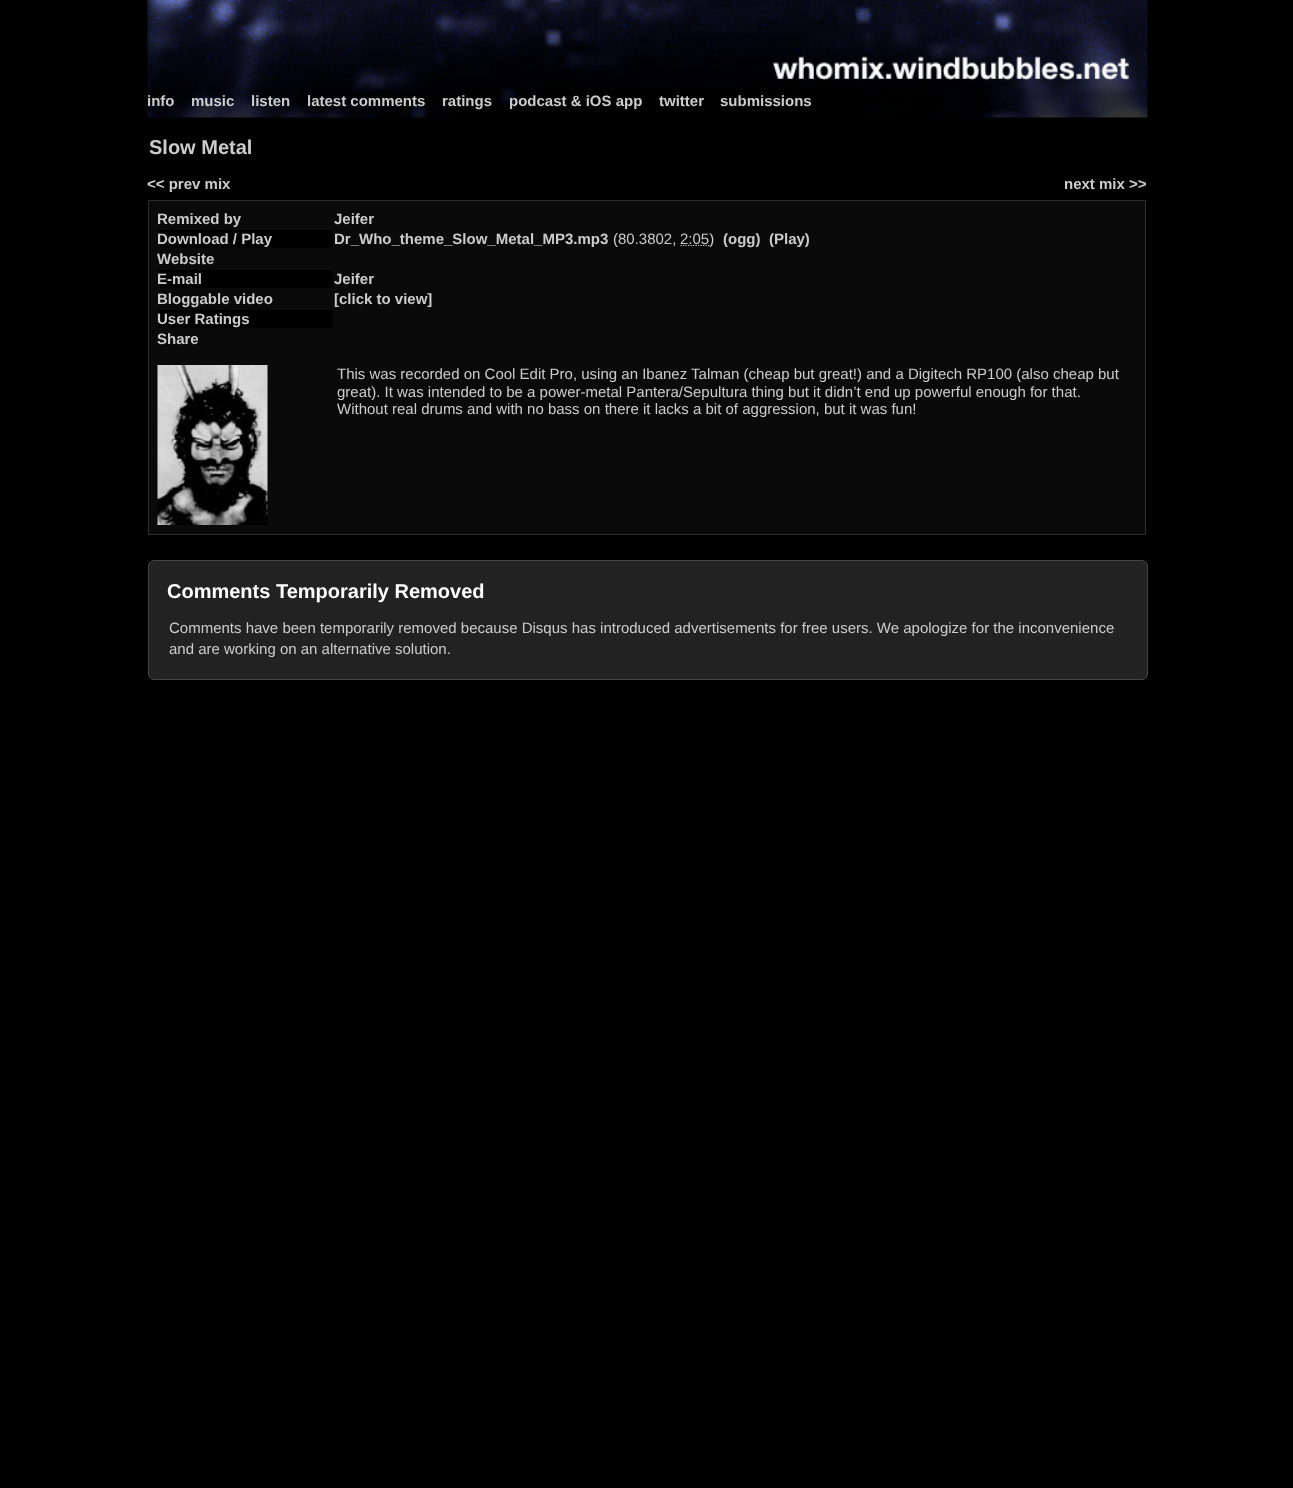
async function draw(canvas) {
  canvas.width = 1293
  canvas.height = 1488
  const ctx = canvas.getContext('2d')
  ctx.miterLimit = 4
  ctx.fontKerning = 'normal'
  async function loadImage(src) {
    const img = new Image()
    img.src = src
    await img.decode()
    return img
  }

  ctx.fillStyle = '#000'
  ctx.fillRect(0, 0, 1293, 1488)
  ctx.drawImage(await loadImage('image0.png'), 147, 0, 1001, 118)
  ctx.font = 'bold 15px Liberation Sans'
  ctx.fillStyle = '#ccc'
  ctx.fillText('info', 147, 106)
  ctx.fillText('music', 191, 106)
  ctx.fillText('listen', 251, 106)
  ctx.fillText('latest comments', 307, 106)
  ctx.fillText('ratings', 442, 106)
  ctx.fillText('podcast & iOS app', 509, 106)
  ctx.fillText('twitter', 659, 106)
  ctx.fillText('submissions', 720, 106)
  ctx.font = 'bold 20px Liberation Sans'
  ctx.fillText('Slow Metal', 149, 154)
  ctx.font = 'bold 15px Liberation Sans'
  ctx.fillText('<< prev mix', 147, 189)
  ctx.fillText('next mix >>', 1064, 189)
  ctx.fillStyle = '#0a0a0a'
  ctx.beginPath()
  ctx.rect(148.5, 200.5, 997, 334)
  ctx.fill()
  ctx.strokeStyle = '#2f2f2f'
  ctx.stroke()
  ctx.fillStyle = '#ccc'
  ctx.fillText('Remixed by', 157, 224)
  ctx.fillText('Jeifer', 334, 224)
  ctx.fillStyle = '#000'
  ctx.fillRect(158, 230, 175, 18)
  ctx.fillStyle = '#ccc'
  ctx.fillText('Download / Play', 157, 244)
  ctx.fillText('Dr_Who_theme_Slow_Metal_MP3.mp3', 334, 244)
  ctx.font = '15px Liberation Sans'
  ctx.fillText('(80.3802,', 613, 244)
  ctx.beginPath()
  ctx.moveTo(680.5, 245.5)
  ctx.lineTo(709.5, 245.5)
  ctx.strokeStyle = '#ccc'
  ctx.lineWidth = 1.2
  ctx.setLineDash([1.25, 1.25])
  ctx.stroke()
  ctx.fillText('2:05)', 680, 244)
  ctx.font = 'bold 15px Liberation Sans'
  ctx.fillText('(ogg)', 723, 244)
  ctx.fillText('(Play)', 769, 244)
  ctx.fillText('Website', 157, 264)
  ctx.fillStyle = '#000'
  ctx.fillRect(158, 270, 175, 18)
  ctx.fillStyle = '#ccc'
  ctx.fillText('E-mail', 157, 284)
  ctx.fillText('Jeifer', 334, 284)
  ctx.fillText('Bloggable video', 157, 304)
  ctx.fillText('[click to view]', 334, 304)
  ctx.fillStyle = '#000'
  ctx.fillRect(158, 310, 175, 18)
  ctx.fillStyle = '#ccc'
  ctx.fillText('User Ratings', 157, 324)
  ctx.fillText('Share', 157, 344)
  ctx.drawImage(await loadImage('image1.png'), 157, 365, 111, 160)
  ctx.font = '15px Liberation Sans'
  ctx.fillText('This was recorded on Cool Edit Pro, using an Ibanez Talman (cheap but great!) and a Digitech RP100 (also cheap but', 337, 379)
  ctx.fillText('great). It was intended to be a power-metal Pantera/Sepultura thing but it didn’t end up powerful enough for that.', 337, 397)
  ctx.fillText('Without real drums and with no bass on there it lacks a bit of aggression, but it was fun!', 337, 414)
  ctx.fillStyle = '#222'
  ctx.beginPath()
  ctx.roundRect(148.5, 560.5, 999, 119, 5.5)
  ctx.fill()
  ctx.strokeStyle = '#444'
  ctx.lineWidth = 1
  ctx.setLineDash([])
  ctx.stroke()
  ctx.font = 'bold 20px Liberation Sans'
  ctx.fillStyle = '#fff'
  ctx.fillText('Comments Temporarily Removed', 167, 598)
  ctx.font = '15px Liberation Sans'
  ctx.fillStyle = '#ccc'
  ctx.fillText('Comments have been temporarily removed because Disqus has introduced advertisements for free users. We apologize for the inconvenience', 169, 633)
  ctx.fillText('and are working on an alternative solution.', 169, 654)
}

draw(document.querySelector('canvas'))
